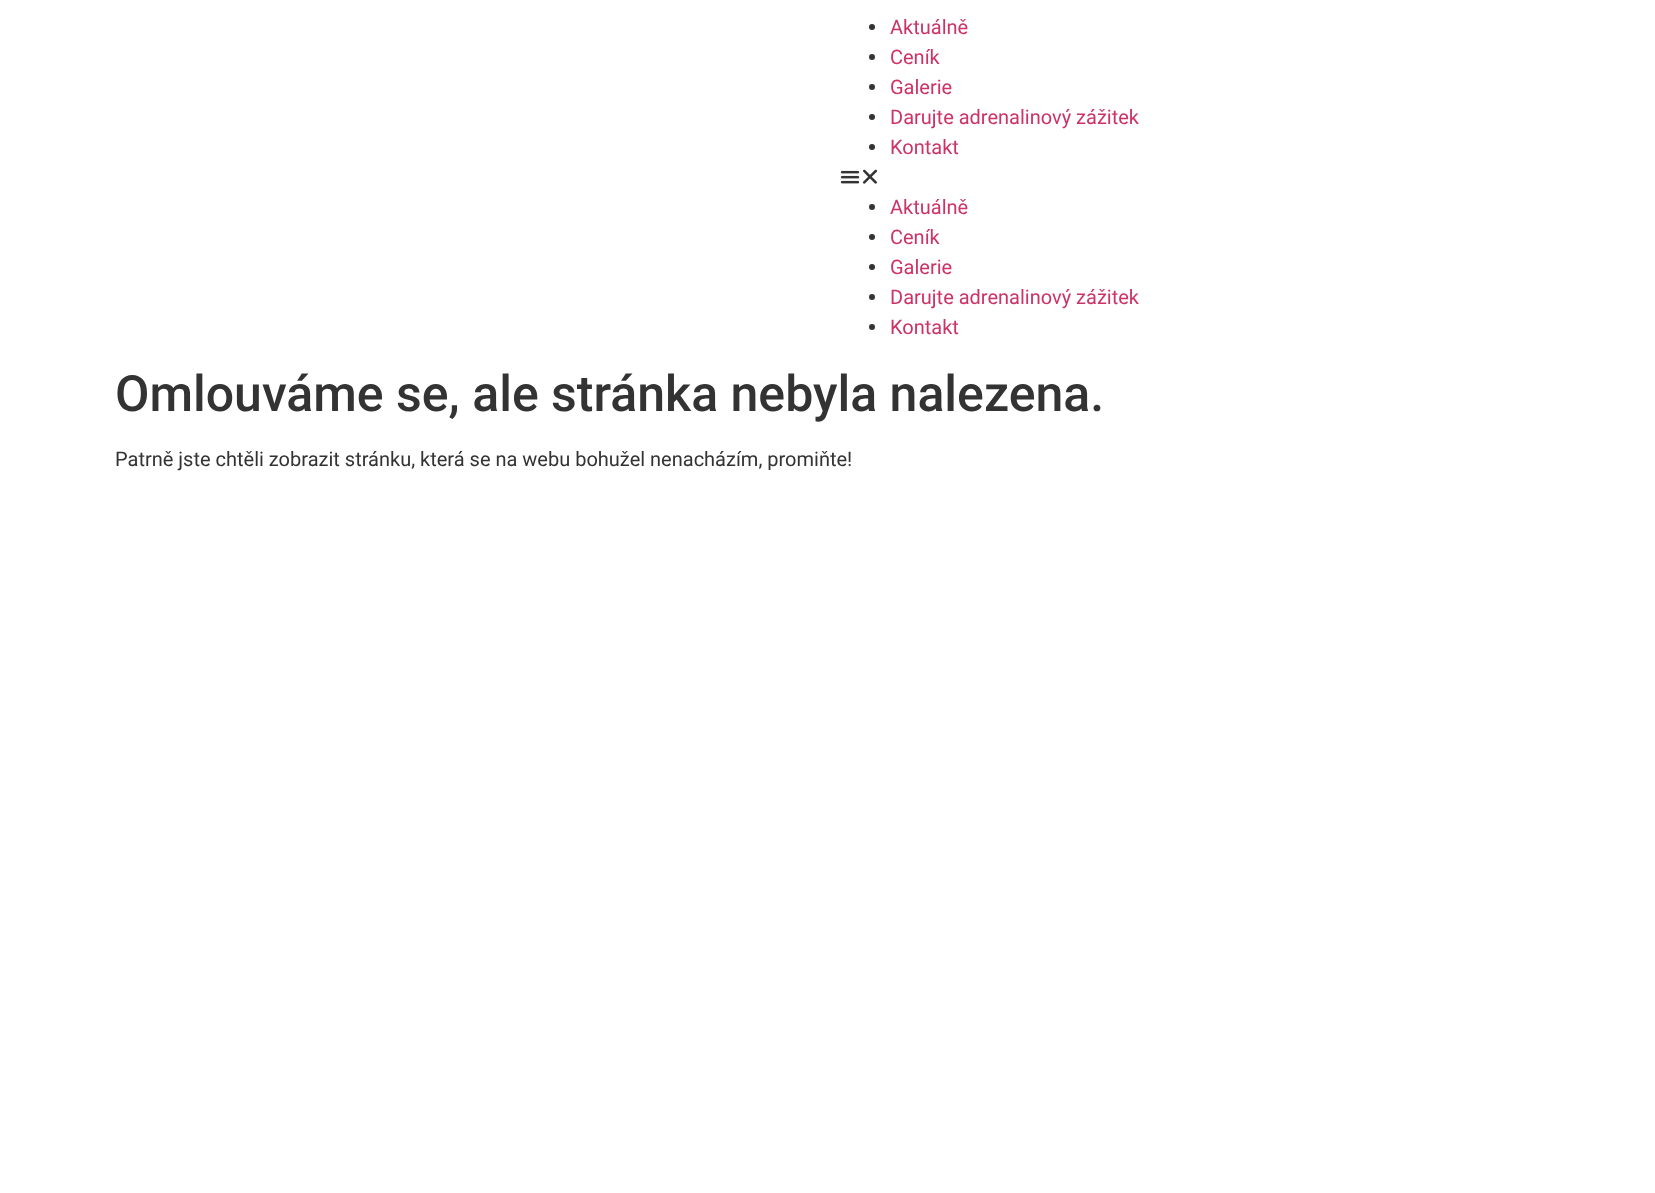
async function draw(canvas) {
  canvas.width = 1655
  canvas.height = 1193
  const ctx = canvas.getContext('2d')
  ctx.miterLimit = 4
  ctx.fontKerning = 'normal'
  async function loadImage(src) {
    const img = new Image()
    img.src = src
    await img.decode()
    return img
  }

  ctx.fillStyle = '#fff'
  ctx.fillRect(0, 0, 1655, 1193)
  ctx.fillStyle = '#333'
  ctx.beginPath()
  ctx.arc(872, 27, 3, 0, 2 * Math.PI)
  ctx.fill()
  ctx.font = '20px Roboto'
  ctx.fillStyle = '#c36'
  ctx.fillText('Aktuálně', 890, 34)
  ctx.fillStyle = '#333'
  ctx.beginPath()
  ctx.arc(872, 57, 3, 0, 2 * Math.PI)
  ctx.fill()
  ctx.fillStyle = '#c36'
  ctx.fillText('Ceník', 890, 64)
  ctx.fillStyle = '#333'
  ctx.beginPath()
  ctx.arc(872, 87, 3, 0, 2 * Math.PI)
  ctx.fill()
  ctx.fillStyle = '#c36'
  ctx.fillText('Galerie', 890, 94)
  ctx.fillStyle = '#333'
  ctx.beginPath()
  ctx.arc(872, 117, 3, 0, 2 * Math.PI)
  ctx.fill()
  ctx.fillStyle = '#c36'
  ctx.fillText('Darujte adrenalinový zážitek', 890, 124)
  ctx.fillStyle = '#333'
  ctx.beginPath()
  ctx.arc(872, 147, 3, 0, 2 * Math.PI)
  ctx.fill()
  ctx.fillStyle = '#c36'
  ctx.fillText('Kontakt', 890, 154)
  ctx.drawImage(await loadImage('image0.png'), 840, 170, 20, 14)
  ctx.drawImage(await loadImage('image1.png'), 862, 169, 16, 15)
  ctx.fillStyle = '#333'
  ctx.beginPath()
  ctx.arc(872, 207, 3, 0, 2 * Math.PI)
  ctx.fill()
  ctx.fillStyle = '#c36'
  ctx.fillText('Aktuálně', 890, 214)
  ctx.fillStyle = '#333'
  ctx.beginPath()
  ctx.arc(872, 237, 3, 0, 2 * Math.PI)
  ctx.fill()
  ctx.fillStyle = '#c36'
  ctx.fillText('Ceník', 890, 244)
  ctx.fillStyle = '#333'
  ctx.beginPath()
  ctx.arc(872, 267, 3, 0, 2 * Math.PI)
  ctx.fill()
  ctx.fillStyle = '#c36'
  ctx.fillText('Galerie', 890, 274)
  ctx.fillStyle = '#333'
  ctx.beginPath()
  ctx.arc(872, 297, 3, 0, 2 * Math.PI)
  ctx.fill()
  ctx.fillStyle = '#c36'
  ctx.fillText('Darujte adrenalinový zážitek', 890, 304)
  ctx.fillStyle = '#333'
  ctx.beginPath()
  ctx.arc(872, 327, 3, 0, 2 * Math.PI)
  ctx.fill()
  ctx.fillStyle = '#c36'
  ctx.fillText('Kontakt', 890, 334)
  ctx.font = '500 50px Roboto'
  ctx.fillStyle = '#333'
  ctx.fillText('Omlouváme se, ale stránka nebyla nalezena.', 115, 411)
  ctx.font = '20px Roboto'
  ctx.fillText('Patrně jste chtěli zobrazit stránku, která se na webu bohužel nenacházím, promiňte!', 115, 466)
}

draw(document.querySelector('canvas'))
